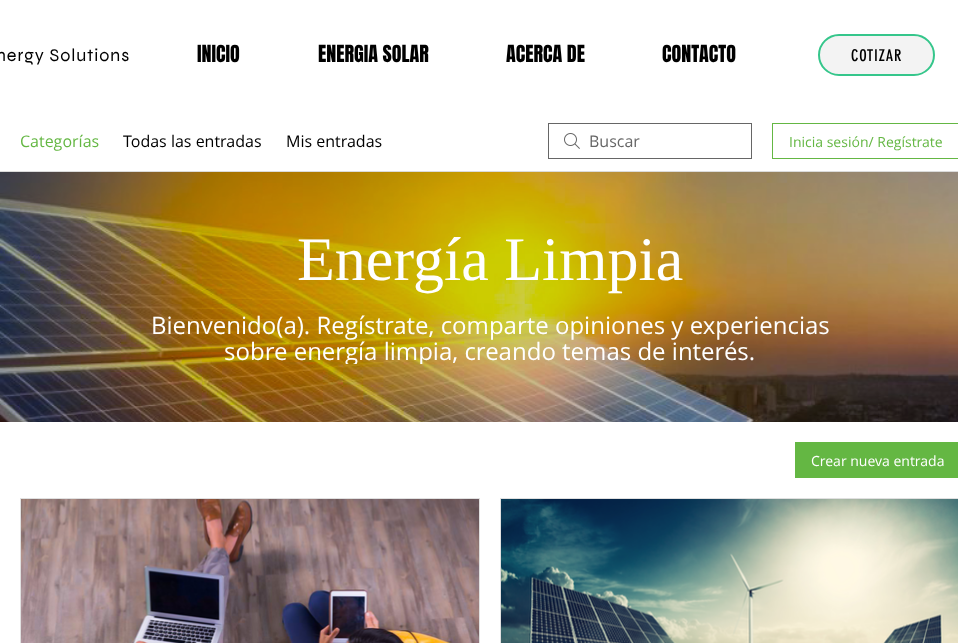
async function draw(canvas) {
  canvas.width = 958
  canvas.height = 643
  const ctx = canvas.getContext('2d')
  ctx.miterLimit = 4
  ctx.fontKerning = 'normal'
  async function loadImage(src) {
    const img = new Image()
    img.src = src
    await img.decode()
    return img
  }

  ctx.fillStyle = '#fff'
  ctx.fillRect(0, 0, 958, 643)
  ctx.letterSpacing = '0.9px'
  ctx.font = '18px Syne'
  ctx.fillStyle = '#000'
  ctx.fillText('nergy Solutions', -4, 61)
  ctx.letterSpacing = '0px'
  ctx.font = '20px Anton'
  ctx.fillText('INICIO', 197, 62)
  ctx.fillText('ENERGIA SOLAR', 318, 62)
  ctx.fillText('ACERCA DE', 506, 62)
  ctx.fillText('CONTACTO', 662, 62)
  ctx.fillStyle = '#f3f3f3'
  ctx.beginPath()
  ctx.roundRect(819, 35, 115, 40, 20)
  ctx.fill()
  ctx.strokeStyle = '#35c68b'
  ctx.lineWidth = 2
  ctx.stroke()
  ctx.letterSpacing = '0.75px'
  ctx.font = '16px "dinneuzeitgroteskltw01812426"'
  ctx.fillStyle = '#000'
  ctx.fillText('COTIZAR', 851, 61)
  ctx.fillStyle = '#dbdbdb'
  ctx.fillRect(0, 171, 958, 1)
  ctx.letterSpacing = '0px'
  ctx.font = '16px Open Sans'
  ctx.fillStyle = '#64b743'
  ctx.fillText('Categorías', 20, 147)
  ctx.fillStyle = '#000'
  ctx.fillText('Todas las entradas', 123, 147)
  ctx.fillText('Mis entradas', 286, 147)
  ctx.drawImage(await loadImage('image0.png'), 564, 133, 16, 16)
  ctx.strokeStyle = '#666'
  ctx.lineWidth = 1
  ctx.strokeRect(548.5, 123.5, 203, 35)
  ctx.fillStyle = '#666'
  ctx.fillText('Buscar', 589, 147)
  ctx.strokeStyle = '#64b743'
  ctx.strokeRect(772.5, 123.5, 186, 35)
  ctx.font = '14px Open Sans'
  ctx.fillStyle = '#64b743'
  ctx.fillText('Inicia sesión/ Regístrate', 789, 147)
  ctx.drawImage(await loadImage('image1.png'), 0, 172, 958, 250)
  ctx.font = '62px Liberation Serif'
  ctx.fillStyle = '#fff'
  ctx.fillText('Energía Limpia', 297, 280)
  ctx.font = '24px Open Sans'
  ctx.fillText('Bienvenido(a). Regístrate, comparte opiniones y experiencias', 151, 334)
  ctx.save()
  ctx.beginPath()
  ctx.rect(150, 312, 680, 52)
  ctx.clip()
  ctx.fillText('sobre energía limpia, creando temas de interés.', 224, 360)
  ctx.restore()
  ctx.fillStyle = '#64b743'
  ctx.fillRect(795, 442, 163, 36)
  ctx.font = '14px Open Sans'
  ctx.fillStyle = '#fff'
  ctx.fillText('Crear nueva entrada', 811, 466)
  ctx.strokeStyle = '#e0e0e0'
  ctx.strokeRect(20.5, 498.5, 459, 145)
  ctx.drawImage(await loadImage('image2.png'), 21, 499, 458, 144)
  ctx.strokeRect(500.5, 498.5, 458, 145)
  ctx.drawImage(await loadImage('image3.png'), 501, 499, 457, 144)
}

draw(document.querySelector('canvas'))
